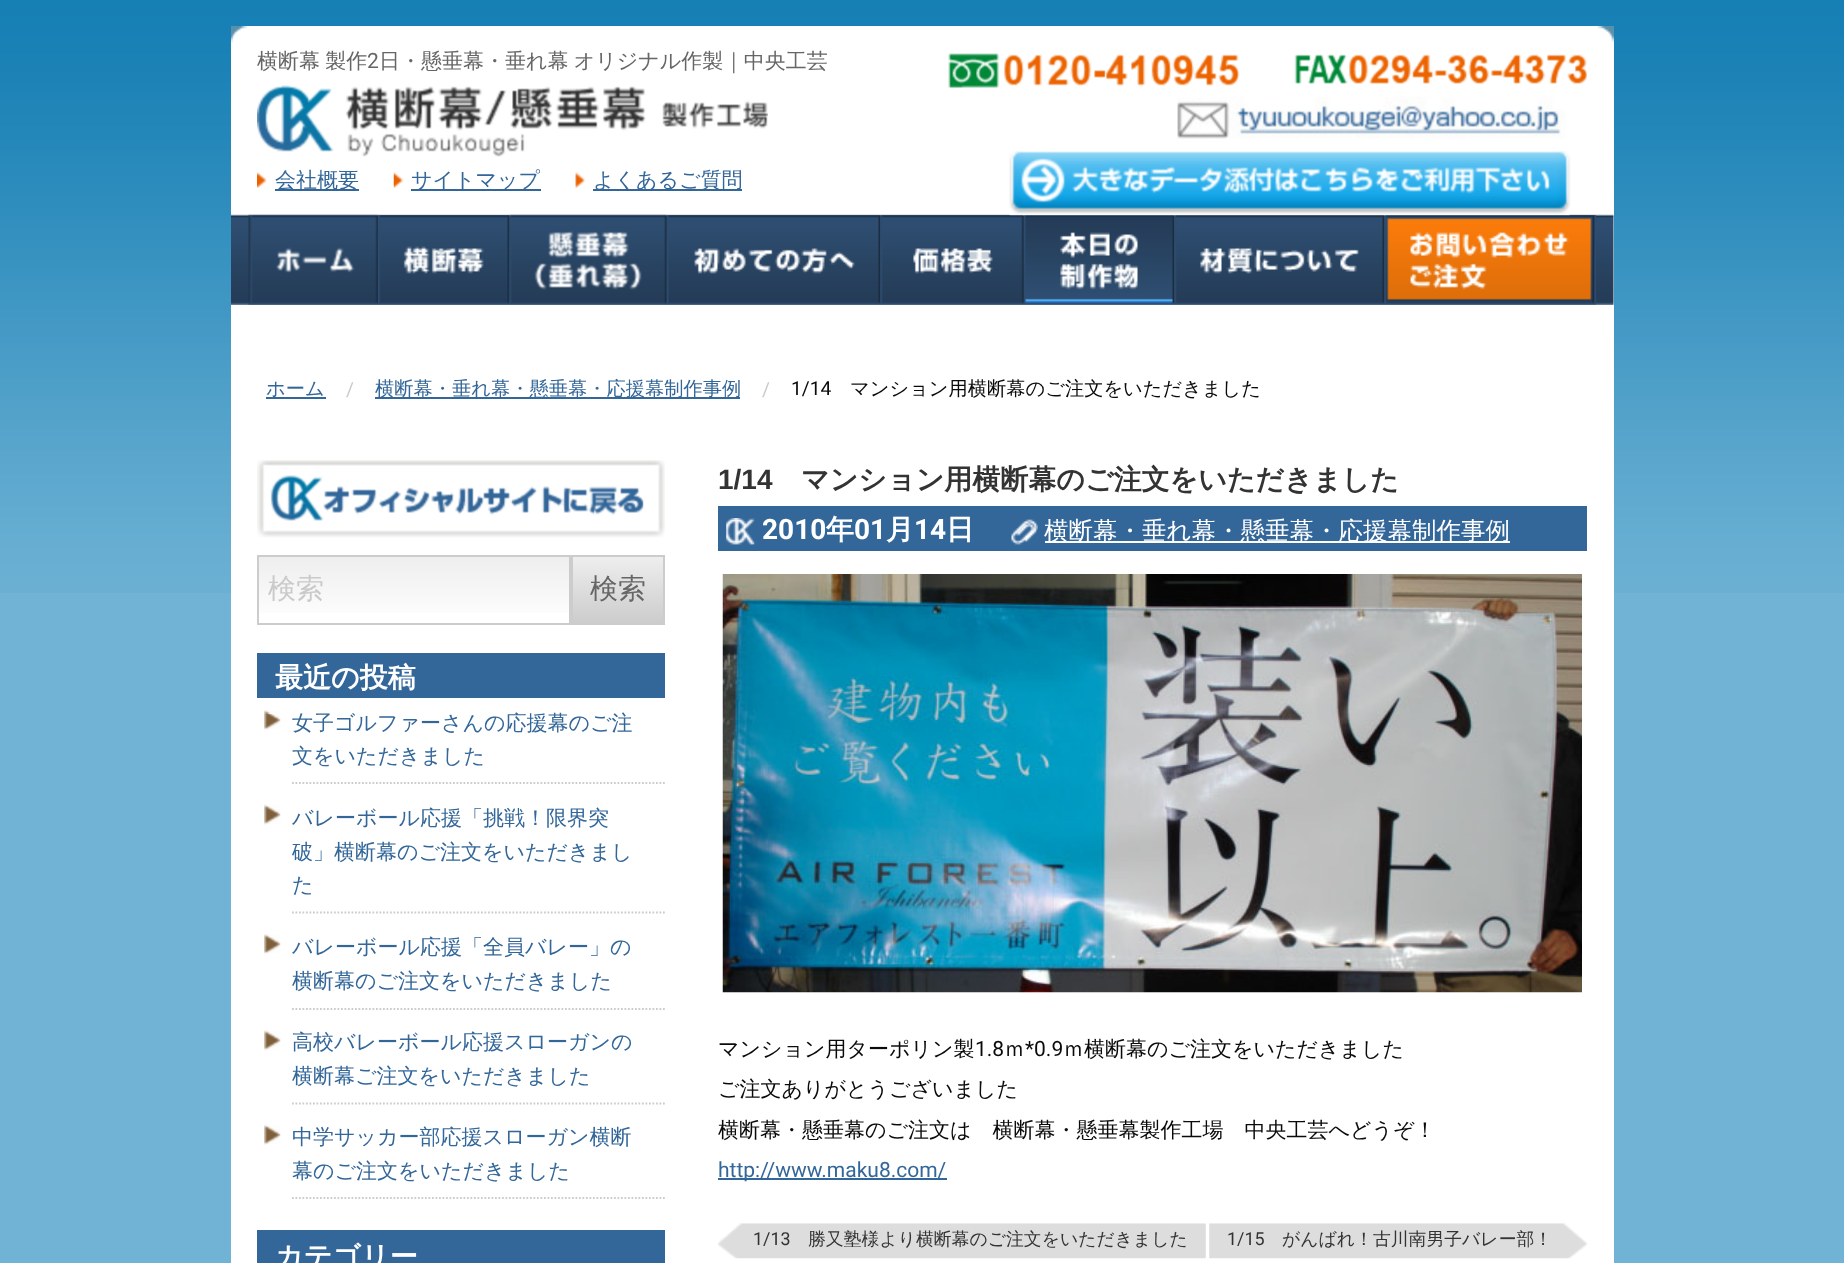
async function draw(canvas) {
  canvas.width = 1844
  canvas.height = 1263
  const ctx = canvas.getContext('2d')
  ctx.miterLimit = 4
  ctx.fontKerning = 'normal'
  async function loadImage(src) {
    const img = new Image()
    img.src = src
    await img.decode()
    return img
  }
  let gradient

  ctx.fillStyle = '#70b3d5'
  ctx.fillRect(0, 0, 1844, 1263)
  ctx.drawImage(await loadImage('image0.png'), 0, 0, 1844, 593)
  ctx.fillStyle = '#fff'
  ctx.fillRect(231, 43, 1383, 1220)
  ctx.drawImage(await loadImage('image1.png'), 231, 26, 1383, 18)
  ctx.wordSpacing = '-1px'
  ctx.font = '500 21px WenQuanYi Zen Hei'
  ctx.fillStyle = '#666'
  ctx.fillText('横断幕 製作', 257, 68)
  ctx.wordSpacing = '0px'
  ctx.font = '21px Roboto'
  ctx.fillText('2', 367, 68)
  ctx.wordSpacing = '-1px'
  ctx.font = '500 21px WenQuanYi Zen Hei'
  ctx.fillText('日・懸垂幕・垂れ幕 オリジナル作製｜中央工芸', 379, 68)
  ctx.drawImage(await loadImage('image2.png'), 257, 85, 511, 72)
  ctx.drawImage(await loadImage('image3.png'), 257, 172, 10, 16)
  ctx.fillStyle = '#369'
  ctx.fillRect(275, 189, 84, 2)
  ctx.wordSpacing = '0px'
  ctx.fillText('会社概要', 275, 187)
  ctx.drawImage(await loadImage('image4.png'), 393, 172, 10, 16)
  ctx.fillRect(411, 189, 130, 2)
  ctx.fillText('サイトマップ', 411, 187)
  ctx.drawImage(await loadImage('image5.png'), 575, 172, 11, 16)
  ctx.fillRect(593, 189, 149, 2)
  ctx.fillText('よくあるご質問', 593, 187)
  ctx.drawImage(await loadImage('image6.png'), 948, 53, 292, 35)
  ctx.drawImage(await loadImage('image7.png'), 1294, 54, 293, 30)
  ctx.drawImage(await loadImage('image8.png'), 1177, 96, 389, 43)
  ctx.drawImage(await loadImage('image10.png'), 231, 214, 1383, 91)
  ctx.drawImage(await loadImage('image9.png'), 1009, 151, 562, 65)
  ctx.drawImage(await loadImage('image11.png'), 248, 214, 131, 91)
  ctx.drawImage(await loadImage('image12.png'), 378, 215, 132, 90)
  ctx.drawImage(await loadImage('image13.png'), 508, 214, 160, 91)
  ctx.drawImage(await loadImage('image14.png'), 666, 215, 215, 90)
  ctx.drawImage(await loadImage('image15.png'), 880, 215, 144, 90)
  ctx.drawImage(await loadImage('image16.png'), 1023, 215, 152, 90)
  ctx.drawImage(await loadImage('image17.png'), 1174, 215, 211, 90)
  ctx.drawImage(await loadImage('image18.png'), 1384, 215, 212, 90)
  ctx.font = '500 19.25px WenQuanYi Zen Hei'
  ctx.fillText('ホーム', 266, 395)
  ctx.fillRect(266, 397, 60, 2)
  ctx.font = '19.25px Roboto'
  ctx.fillStyle = '#cacaca'
  ctx.fillText('/', 346, 396)
  ctx.fillStyle = '#369'
  ctx.fillRect(375, 397, 365, 2)
  ctx.font = '500 19.25px WenQuanYi Zen Hei'
  ctx.fillText('横断幕・垂れ幕・懸垂幕・応援幕制作事例', 375, 395)
  ctx.font = '19.25px Roboto'
  ctx.fillStyle = '#cacaca'
  ctx.fillText('/', 762, 396)
  ctx.fillStyle = '#0a0a0a'
  ctx.fillText('1/14', 791, 395)
  ctx.font = '500 19.25px WenQuanYi Zen Hei'
  ctx.fillText('マンション用横断幕のご注文をいただきました', 850, 395)
  ctx.drawImage(await loadImage('image19.png'), 257, 460, 408, 78)
  gradient = ctx.createLinearGradient(259, 557, 259, 623)
  gradient.addColorStop(0, '#eee')
  gradient.addColorStop(1, '#fff')
  ctx.fillStyle = gradient
  ctx.fillRect(259, 557, 310, 56)
  ctx.strokeStyle = '#ccc'
  ctx.lineWidth = 2
  ctx.strokeRect(258, 556, 312, 68)
  ctx.font = '500 28px WenQuanYi Zen Hei'
  ctx.fillStyle = '#cacaca'
  ctx.fillText('検索', 268, 598)
  gradient = ctx.createLinearGradient(572, 557, 572, 623)
  gradient.addColorStop(0, '#eee')
  gradient.addColorStop(1, '#ccc')
  ctx.fillStyle = gradient
  ctx.fillRect(573, 557, 90, 66)
  ctx.strokeRect(572, 556, 92, 68)
  ctx.fillStyle = '#666'
  ctx.fillText('検索', 590, 598)
  ctx.fillStyle = '#369'
  ctx.fillRect(257, 653, 408, 45)
  ctx.font = 'bold 28px WenQuanYi Zen Hei'
  ctx.fillStyle = '#fff'
  ctx.fillText('最近の投稿', 275, 687)
  ctx.beginPath()
  ctx.moveTo(292, 783)
  ctx.lineTo(665, 783)
  ctx.lineWidth = 1.8
  ctx.setLineDash([1.75, 1.75])
  ctx.stroke()
  ctx.drawImage(await loadImage('image20.png'), 264, 710, 17, 20)
  ctx.font = '500 21px WenQuanYi Zen Hei'
  ctx.fillStyle = '#369'
  ctx.fillText('女子ゴルファーさんの応援幕のご注', 292, 730)
  ctx.fillText('文をいただきました', 292, 763)
  ctx.beginPath()
  ctx.moveTo(292, 912.5)
  ctx.lineTo(665, 912.5)
  ctx.stroke()
  ctx.drawImage(await loadImage('image21.png'), 264, 804, 17, 21)
  ctx.fillText('バレーボール応援「挑戦！限界突', 292, 825)
  ctx.fillText('破」横断幕のご注文をいただきまし', 292, 859)
  ctx.fillText('た', 292, 892)
  ctx.beginPath()
  ctx.moveTo(292, 1009)
  ctx.lineTo(665, 1009)
  ctx.stroke()
  ctx.drawImage(await loadImage('image22.png'), 264, 934, 17, 20)
  ctx.fillText('バレーボール応援「全員バレー」の', 292, 954)
  ctx.fillText('横断幕のご注文をいただきました', 292, 988)
  ctx.beginPath()
  ctx.moveTo(292, 1103.5)
  ctx.lineTo(665, 1103.5)
  ctx.stroke()
  ctx.drawImage(await loadImage('image23.png'), 264, 1030, 17, 21)
  ctx.fillText('高校バレーボール応援スローガンの', 292, 1049)
  ctx.fillText('横断幕ご注文をいただきました', 292, 1083)
  ctx.beginPath()
  ctx.moveTo(292, 1198)
  ctx.lineTo(665, 1198)
  ctx.stroke()
  ctx.drawImage(await loadImage('image24.png'), 264, 1124, 17, 21)
  ctx.fillText('中学サッカー部応援スローガン横断', 292, 1144)
  ctx.fillText('幕のご注文をいただきました', 292, 1178)
  ctx.fillRect(257, 1230, 408, 33)
  ctx.font = 'bold 28px WenQuanYi Zen Hei'
  ctx.fillStyle = '#fff'
  ctx.fillText('カテゴリー', 275, 1266)
  ctx.font = 'bold 28px Liberation Sans'
  ctx.fillStyle = '#333'
  ctx.fillText('1/14', 718, 489)
  ctx.font = 'bold 28px WenQuanYi Zen Hei'
  ctx.fillText('マンション用横断幕のご注文をいただきました', 801, 489)
  ctx.fillStyle = '#369'
  ctx.fillRect(718, 506, 869, 45)
  ctx.drawImage(await loadImage('image25.png'), 726, 518, 29, 27)
  ctx.font = 'bold 28px Roboto'
  ctx.fillStyle = '#fff'
  ctx.fillText('2010', 762, 539)
  ctx.font = 'bold 28px WenQuanYi Zen Hei'
  ctx.fillText('年', 826, 539)
  ctx.font = 'bold 28px Roboto'
  ctx.fillText('01', 854, 539)
  ctx.font = 'bold 28px WenQuanYi Zen Hei'
  ctx.fillText('月', 886, 539)
  ctx.font = 'bold 28px Roboto'
  ctx.fillText('14', 914, 539)
  ctx.font = 'bold 28px WenQuanYi Zen Hei'
  ctx.fillText('日', 946, 539)
  ctx.drawImage(await loadImage('image26.png'), 1011, 519, 27, 26)
  ctx.fillStyle = '#fefefe'
  ctx.fillRect(1045, 541, 465, 2)
  ctx.font = '500 24.5px WenQuanYi Zen Hei'
  ctx.fillStyle = '#fff'
  ctx.fillText('横断幕・垂れ幕・懸垂幕・応援幕制作事例', 1044, 539)
  ctx.drawImage(await loadImage('image27.png'), 722, 574, 860, 419)
  ctx.font = '500 21px WenQuanYi Zen Hei'
  ctx.fillStyle = '#0a0a0a'
  ctx.fillText('マンション用ターポリン製', 718, 1056)
  ctx.font = '21px Roboto'
  ctx.fillText('1.8', 975, 1056)
  ctx.font = '500 21px WenQuanYi Zen Hei'
  ctx.fillText('ｍ', 1004, 1056)
  ctx.font = '21px Roboto'
  ctx.fillText('*0.9', 1025, 1056)
  ctx.font = '500 21px WenQuanYi Zen Hei'
  ctx.fillText('ｍ横断幕のご注文をいただきました', 1063, 1056)
  ctx.fillText('ご注文ありがとうございました', 718, 1096)
  ctx.fillText('横断幕・懸垂幕のご注文は　横断幕・懸垂幕製作工場　中央工芸へどうぞ！', 718, 1137)
  ctx.fillStyle = '#369'
  ctx.fillRect(718, 1178, 229, 2)
  ctx.font = '21px Roboto'
  ctx.fillText('http://www.maku8.com/', 718, 1177)
  ctx.drawImage(await loadImage('image28.png'), 718, 1223, 488, 36)
  ctx.font = '17.85px Roboto'
  ctx.fillStyle = '#333'
  ctx.fillText('1/13', 753, 1245)
  ctx.font = '500 17.85px WenQuanYi Zen Hei'
  ctx.fillText('勝又塾様より横断幕のご注文をいただきました', 808, 1245)
  ctx.drawImage(await loadImage('image29.png'), 1209, 1223, 379, 36)
  ctx.font = '17.85px Roboto'
  ctx.fillText('1/15', 1227, 1245)
  ctx.font = '500 17.85px WenQuanYi Zen Hei'
  ctx.fillText('がんばれ！古川南男子バレー部！', 1282, 1245)
}

draw(document.querySelector('canvas'))
